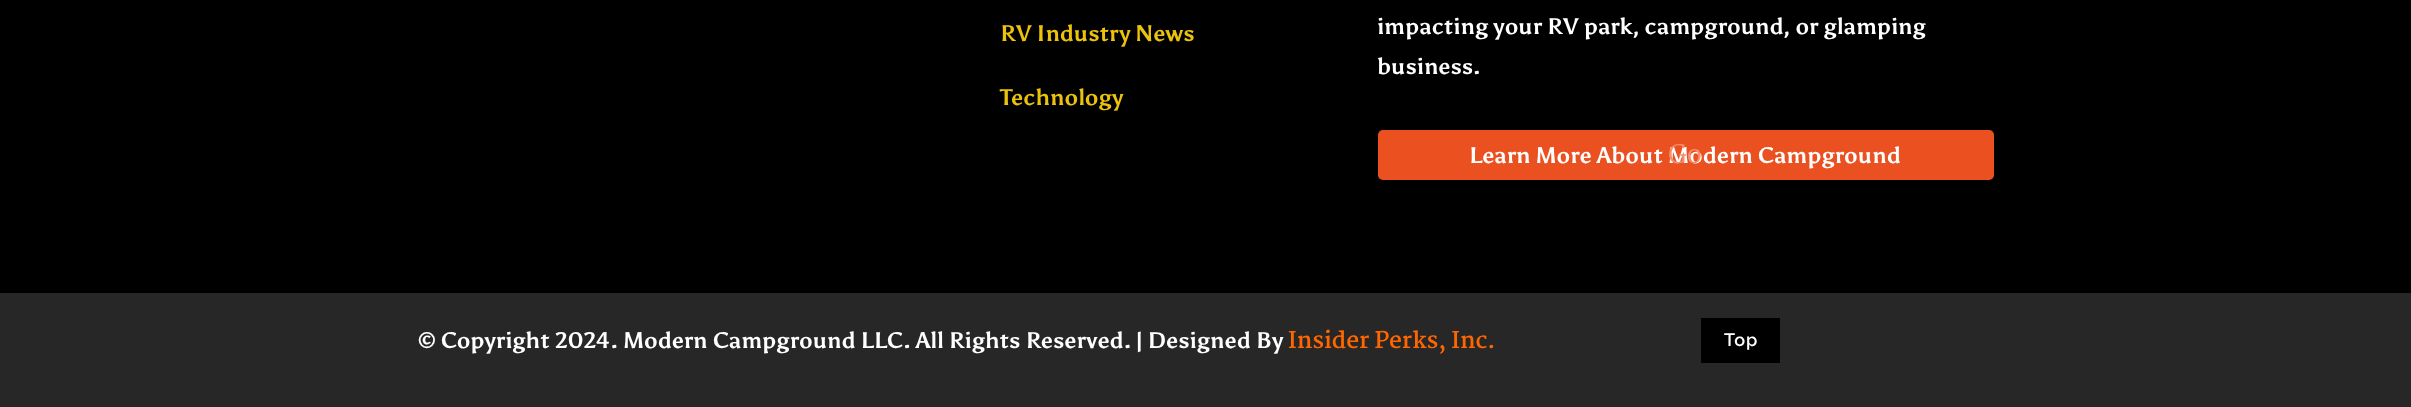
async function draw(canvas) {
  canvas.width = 2411
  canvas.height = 407
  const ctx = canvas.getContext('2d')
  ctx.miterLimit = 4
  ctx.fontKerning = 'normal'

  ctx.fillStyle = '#000'
  ctx.fillRect(0, 0, 2411, 407)
  ctx.font = 'bold 22.5px Asul'
  ctx.fillStyle = '#ecc30b'
  ctx.fillText('RV Industry News', 1000, 41)
  ctx.fillText('Technology', 1000, 105)
  ctx.fillStyle = '#fff'
  ctx.fillText('impacting your RV park, campground, or glamping', 1377, 34)
  ctx.fillText('business.', 1377, 74)
  ctx.fillStyle = '#eb5020'
  ctx.beginPath()
  ctx.roundRect(1378, 130, 616, 50, 5)
  ctx.fill()
  ctx.fillStyle = '#fff'
  ctx.fillText('Learn More About Modern Campground', 1469, 163)
  ctx.font = '600 25px Martel'
  ctx.fillStyle = '#f28f70'
  ctx.fillText('Go', 1668, 163)
  ctx.fillStyle = '#272727'
  ctx.fillRect(0, 293, 2411, 114)
  ctx.font = 'bold 22.5px Asul'
  ctx.fillStyle = '#fff'
  ctx.fillText('© Copyright 2024. Modern Campground LLC. All Rights Reserved. | Designed By', 418, 348)
  ctx.font = 'bold 22.5px Martel'
  ctx.fillStyle = '#f60'
  ctx.fillText('Insider Perks, Inc.', 1288, 348)
  ctx.fillStyle = '#000'
  ctx.fillRect(1701, 318, 79, 45)
  ctx.letterSpacing = '1px'
  ctx.font = '600 18px Raleway'
  ctx.fillStyle = '#fff'
  ctx.fillText('Top', 1724, 346)
}

draw(document.querySelector('canvas'))
